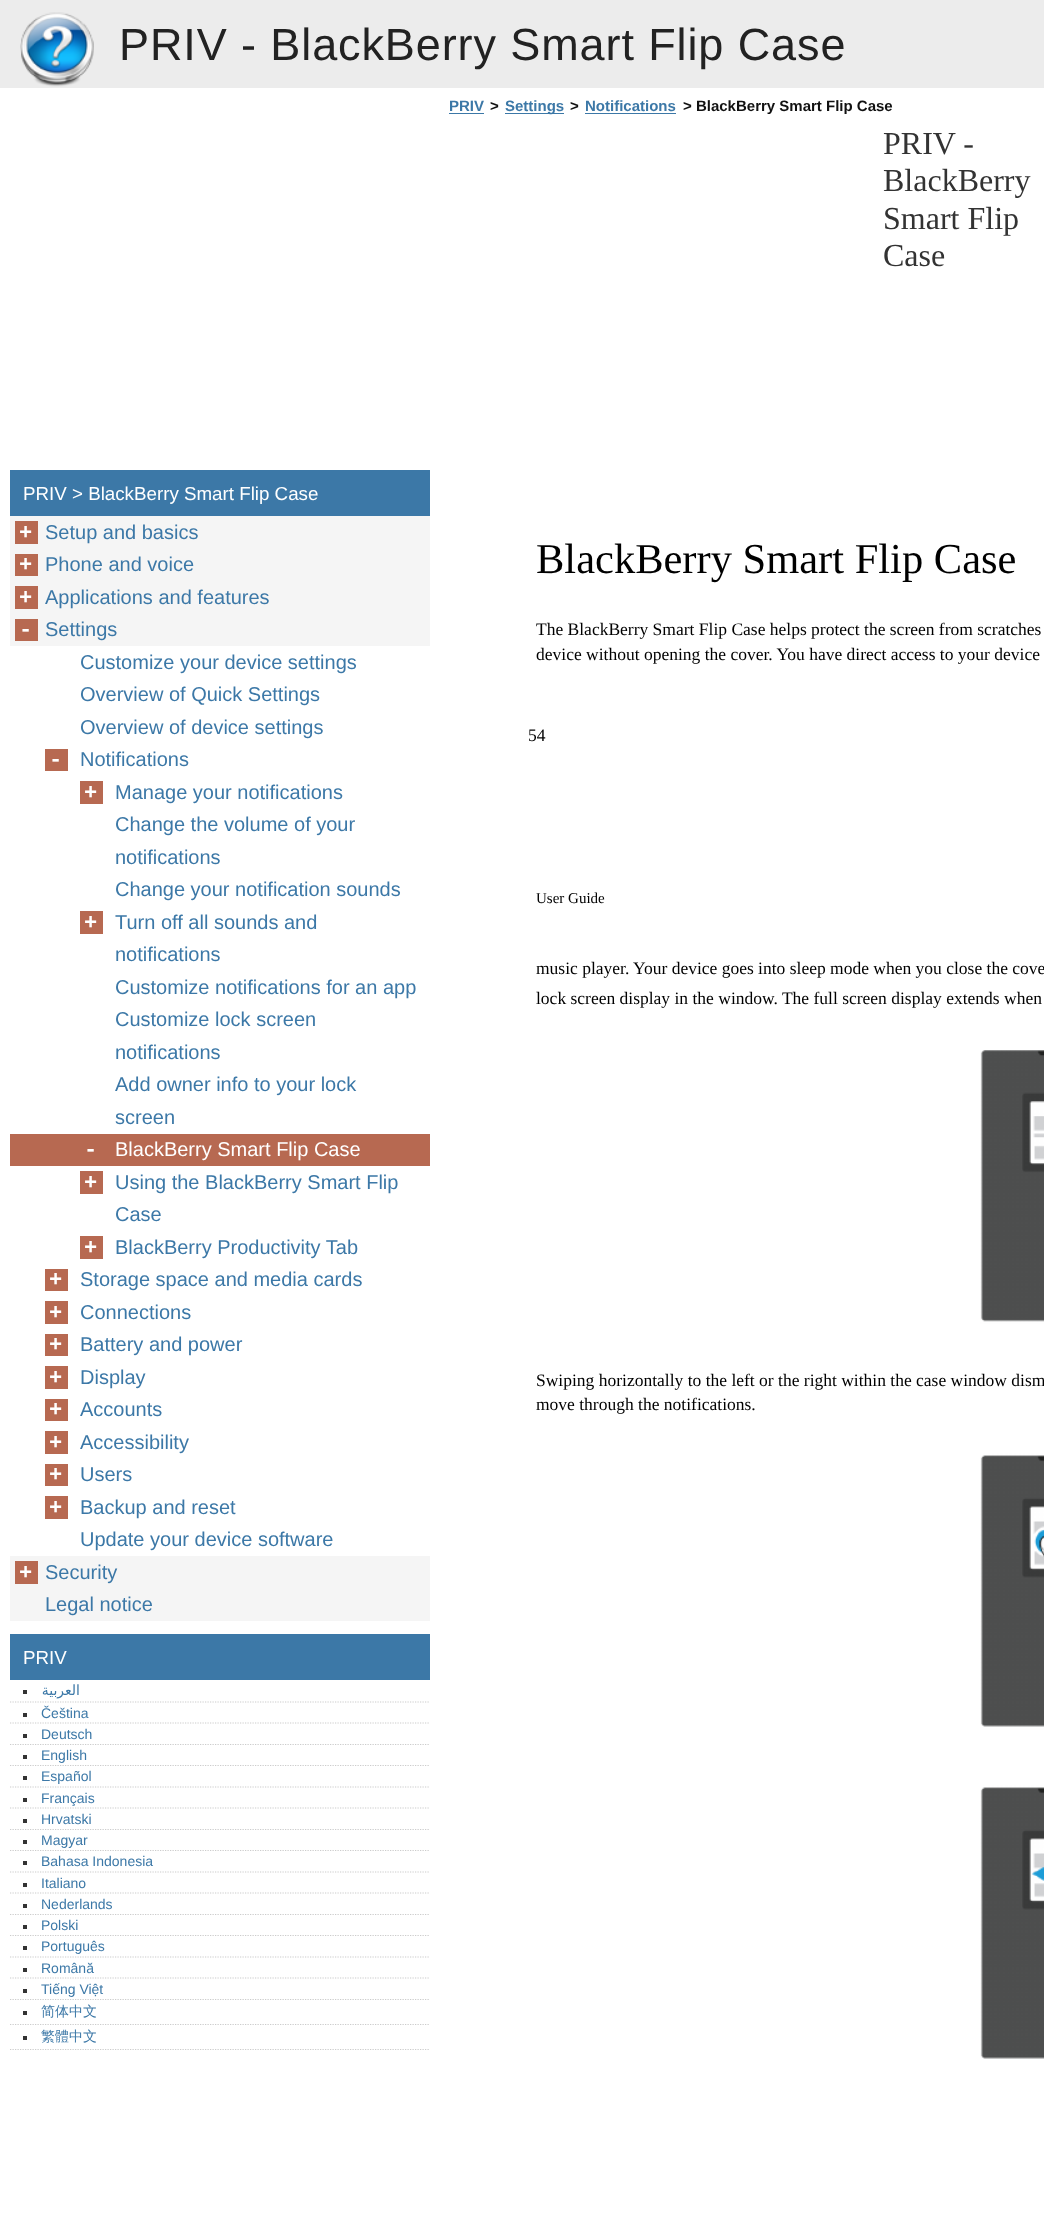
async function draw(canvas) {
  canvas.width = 1044
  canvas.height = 2217
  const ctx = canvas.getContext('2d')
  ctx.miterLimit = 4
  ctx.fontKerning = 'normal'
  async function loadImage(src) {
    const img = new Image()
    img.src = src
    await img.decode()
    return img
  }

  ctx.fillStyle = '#ececec'
  ctx.fillRect(0, 0, 1044, 2217)
  ctx.drawImage(await loadImage('image0.png'), 20, 12, 74, 75)
  ctx.letterSpacing = '0.9px'
  ctx.font = '45px Liberation Sans'
  ctx.fillStyle = '#222'
  ctx.fillText('PRIV - BlackBerry Smart Flip Case', 119, 60)
  ctx.fillStyle = '#fff'
  ctx.fillRect(0, 88, 1044, 2129)
  ctx.fillStyle = '#3c78a7'
  ctx.fillRect(10, 470, 420, 46)
  ctx.letterSpacing = '0px'
  ctx.font = '18.75px Liberation Sans'
  ctx.fillStyle = '#fff'
  ctx.fillText('PRIV > BlackBerry Smart Flip Case', 23, 500)
  ctx.fillStyle = '#f5f5f5'
  ctx.fillRect(10, 516, 420, 130)
  ctx.fillStyle = '#b76951'
  ctx.fillRect(15, 521, 23, 23)
  ctx.font = 'bold 22px Liberation Mono'
  ctx.fillStyle = '#fff'
  ctx.fillText('+', 19, 539)
  ctx.font = '20px Liberation Sans'
  ctx.fillStyle = '#3c78a7'
  ctx.fillText('Setup and basics', 45, 539)
  ctx.fillStyle = '#b76951'
  ctx.fillRect(15, 554, 23, 22)
  ctx.font = 'bold 22px Liberation Mono'
  ctx.fillStyle = '#fff'
  ctx.fillText('+', 19, 571)
  ctx.font = '20px Liberation Sans'
  ctx.fillStyle = '#3c78a7'
  ctx.fillText('Phone and voice', 45, 571)
  ctx.fillStyle = '#b76951'
  ctx.fillRect(15, 586, 23, 23)
  ctx.font = 'bold 22px Liberation Mono'
  ctx.fillStyle = '#fff'
  ctx.fillText('+', 19, 604)
  ctx.font = '20px Liberation Sans'
  ctx.fillStyle = '#3c78a7'
  ctx.fillText('Applications and features', 45, 604)
  ctx.fillStyle = '#b76951'
  ctx.fillRect(15, 619, 23, 22)
  ctx.font = 'bold 22px Liberation Mono'
  ctx.fillStyle = '#fff'
  ctx.fillText('-', 19, 636)
  ctx.font = '20px Liberation Sans'
  ctx.fillStyle = '#3c78a7'
  ctx.fillText('Settings', 45, 636)
  ctx.fillText('Customize your device settings', 80, 669)
  ctx.fillText('Overview of Quick Settings', 80, 701)
  ctx.fillText('Overview of device settings', 80, 734)
  ctx.fillStyle = '#b76951'
  ctx.fillRect(45, 749, 23, 22)
  ctx.font = 'bold 22px Liberation Mono'
  ctx.fillStyle = '#fff'
  ctx.fillText('-', 49, 766)
  ctx.font = '20px Liberation Sans'
  ctx.fillStyle = '#3c78a7'
  ctx.fillText('Notifications', 80, 766)
  ctx.fillStyle = '#b76951'
  ctx.fillRect(80, 781, 23, 23)
  ctx.font = 'bold 22px Liberation Mono'
  ctx.fillStyle = '#fff'
  ctx.fillText('+', 84, 799)
  ctx.font = '20px Liberation Sans'
  ctx.fillStyle = '#3c78a7'
  ctx.fillText('Manage your notifications', 115, 799)
  ctx.fillText('Change the volume of your', 115, 831)
  ctx.fillText('notifications', 115, 864)
  ctx.fillText('Change your notification sounds', 115, 896)
  ctx.fillStyle = '#b76951'
  ctx.fillRect(80, 911, 23, 23)
  ctx.font = 'bold 22px Liberation Mono'
  ctx.fillStyle = '#fff'
  ctx.fillText('+', 84, 929)
  ctx.font = '20px Liberation Sans'
  ctx.fillStyle = '#3c78a7'
  ctx.fillText('Turn off all sounds and', 115, 929)
  ctx.fillText('notifications', 115, 961)
  ctx.fillText('Customize notifications for an app', 115, 994)
  ctx.fillText('Customize lock screen', 115, 1026)
  ctx.fillText('notifications', 115, 1059)
  ctx.fillText('Add owner info to your lock', 115, 1091)
  ctx.fillText('screen', 115, 1124)
  ctx.fillStyle = '#b76951'
  ctx.fillRect(10, 1134, 420, 32)
  ctx.font = 'bold 22px Liberation Mono'
  ctx.fillStyle = '#fff'
  ctx.fillText('-', 84, 1156)
  ctx.font = '20px Liberation Sans'
  ctx.fillText('BlackBerry Smart Flip Case', 115, 1156)
  ctx.fillStyle = '#b76951'
  ctx.fillRect(80, 1171, 23, 23)
  ctx.font = 'bold 22px Liberation Mono'
  ctx.fillStyle = '#fff'
  ctx.fillText('+', 84, 1189)
  ctx.font = '20px Liberation Sans'
  ctx.fillStyle = '#3c78a7'
  ctx.fillText('Using the BlackBerry Smart Flip', 115, 1189)
  ctx.fillText('Case', 115, 1221)
  ctx.fillStyle = '#b76951'
  ctx.fillRect(80, 1236, 23, 23)
  ctx.font = 'bold 22px Liberation Mono'
  ctx.fillStyle = '#fff'
  ctx.fillText('+', 84, 1254)
  ctx.font = '20px Liberation Sans'
  ctx.fillStyle = '#3c78a7'
  ctx.fillText('BlackBerry Productivity Tab', 115, 1254)
  ctx.fillStyle = '#b76951'
  ctx.fillRect(45, 1269, 23, 22)
  ctx.font = 'bold 22px Liberation Mono'
  ctx.fillStyle = '#fff'
  ctx.fillText('+', 49, 1286)
  ctx.font = '20px Liberation Sans'
  ctx.fillStyle = '#3c78a7'
  ctx.fillText('Storage space and media cards', 80, 1286)
  ctx.fillStyle = '#b76951'
  ctx.fillRect(45, 1301, 23, 23)
  ctx.font = 'bold 22px Liberation Mono'
  ctx.fillStyle = '#fff'
  ctx.fillText('+', 49, 1319)
  ctx.font = '20px Liberation Sans'
  ctx.fillStyle = '#3c78a7'
  ctx.fillText('Connections', 80, 1319)
  ctx.fillStyle = '#b76951'
  ctx.fillRect(45, 1334, 23, 22)
  ctx.font = 'bold 22px Liberation Mono'
  ctx.fillStyle = '#fff'
  ctx.fillText('+', 49, 1351)
  ctx.font = '20px Liberation Sans'
  ctx.fillStyle = '#3c78a7'
  ctx.fillText('Battery and power', 80, 1351)
  ctx.fillStyle = '#b76951'
  ctx.fillRect(45, 1366, 23, 23)
  ctx.font = 'bold 22px Liberation Mono'
  ctx.fillStyle = '#fff'
  ctx.fillText('+', 49, 1384)
  ctx.font = '20px Liberation Sans'
  ctx.fillStyle = '#3c78a7'
  ctx.fillText('Display', 80, 1384)
  ctx.fillStyle = '#b76951'
  ctx.fillRect(45, 1399, 23, 22)
  ctx.font = 'bold 22px Liberation Mono'
  ctx.fillStyle = '#fff'
  ctx.fillText('+', 49, 1416)
  ctx.font = '20px Liberation Sans'
  ctx.fillStyle = '#3c78a7'
  ctx.fillText('Accounts', 80, 1416)
  ctx.fillStyle = '#b76951'
  ctx.fillRect(45, 1431, 23, 23)
  ctx.font = 'bold 22px Liberation Mono'
  ctx.fillStyle = '#fff'
  ctx.fillText('+', 49, 1449)
  ctx.font = '20px Liberation Sans'
  ctx.fillStyle = '#3c78a7'
  ctx.fillText('Accessibility', 80, 1449)
  ctx.fillStyle = '#b76951'
  ctx.fillRect(45, 1464, 23, 22)
  ctx.font = 'bold 22px Liberation Mono'
  ctx.fillStyle = '#fff'
  ctx.fillText('+', 49, 1481)
  ctx.font = '20px Liberation Sans'
  ctx.fillStyle = '#3c78a7'
  ctx.fillText('Users', 80, 1481)
  ctx.fillStyle = '#b76951'
  ctx.fillRect(45, 1496, 23, 23)
  ctx.font = 'bold 22px Liberation Mono'
  ctx.fillStyle = '#fff'
  ctx.fillText('+', 49, 1514)
  ctx.font = '20px Liberation Sans'
  ctx.fillStyle = '#3c78a7'
  ctx.fillText('Backup and reset', 80, 1514)
  ctx.fillText('Update your device software', 80, 1546)
  ctx.fillStyle = '#f5f5f5'
  ctx.fillRect(10, 1556, 420, 65)
  ctx.fillStyle = '#b76951'
  ctx.fillRect(15, 1561, 23, 23)
  ctx.font = 'bold 22px Liberation Mono'
  ctx.fillStyle = '#fff'
  ctx.fillText('+', 19, 1579)
  ctx.font = '20px Liberation Sans'
  ctx.fillStyle = '#3c78a7'
  ctx.fillText('Security', 45, 1579)
  ctx.fillText('Legal notice', 45, 1611)
  ctx.fillRect(10, 1634, 420, 46)
  ctx.font = '18.75px Liberation Sans'
  ctx.fillStyle = '#fff'
  ctx.fillText('PRIV', 23, 1664)
  ctx.beginPath()
  ctx.moveTo(10, 1702)
  ctx.lineTo(430, 1702)
  ctx.strokeStyle = '#ccc'
  ctx.lineWidth = 1.2
  ctx.setLineDash([1.25, 1.25])
  ctx.stroke()
  ctx.fillStyle = '#333'
  ctx.fillRect(23, 1690, 4, 4)
  ctx.direction = 'rtl'
  ctx.font = '14px DejaVu Sans'
  ctx.fillStyle = '#3c78a7'
  ctx.fillText('العربية', 80, 1695)
  ctx.beginPath()
  ctx.moveTo(10, 1723)
  ctx.lineTo(430, 1723)
  ctx.stroke()
  ctx.fillStyle = '#333'
  ctx.fillRect(23, 1713, 4, 4)
  ctx.direction = 'ltr'
  ctx.font = '14px Liberation Sans'
  ctx.fillStyle = '#3c78a7'
  ctx.fillText('Čeština', 41, 1718)
  ctx.beginPath()
  ctx.moveTo(10, 1744.5)
  ctx.lineTo(430, 1744.5)
  ctx.stroke()
  ctx.fillStyle = '#333'
  ctx.fillRect(23, 1734, 4, 4)
  ctx.fillStyle = '#3c78a7'
  ctx.fillText('Deutsch', 41, 1739)
  ctx.beginPath()
  ctx.moveTo(10, 1765.5)
  ctx.lineTo(430, 1765.5)
  ctx.stroke()
  ctx.fillStyle = '#333'
  ctx.fillRect(23, 1755, 4, 4)
  ctx.fillStyle = '#3c78a7'
  ctx.fillText('English', 41, 1760)
  ctx.beginPath()
  ctx.moveTo(10, 1787)
  ctx.lineTo(430, 1787)
  ctx.stroke()
  ctx.fillStyle = '#333'
  ctx.fillRect(23, 1776, 4, 4)
  ctx.fillStyle = '#3c78a7'
  ctx.fillText('Español', 41, 1781)
  ctx.beginPath()
  ctx.moveTo(10, 1808)
  ctx.lineTo(430, 1808)
  ctx.stroke()
  ctx.fillStyle = '#333'
  ctx.fillRect(23, 1798, 4, 4)
  ctx.fillStyle = '#3c78a7'
  ctx.fillText('Français', 41, 1803)
  ctx.beginPath()
  ctx.moveTo(10, 1829.5)
  ctx.lineTo(430, 1829.5)
  ctx.stroke()
  ctx.fillStyle = '#333'
  ctx.fillRect(23, 1819, 4, 4)
  ctx.fillStyle = '#3c78a7'
  ctx.fillText('Hrvatski', 41, 1824)
  ctx.beginPath()
  ctx.moveTo(10, 1850.5)
  ctx.lineTo(430, 1850.5)
  ctx.stroke()
  ctx.fillStyle = '#333'
  ctx.fillRect(23, 1840, 4, 4)
  ctx.fillStyle = '#3c78a7'
  ctx.fillText('Magyar', 41, 1845)
  ctx.beginPath()
  ctx.moveTo(10, 1872)
  ctx.lineTo(430, 1872)
  ctx.stroke()
  ctx.fillStyle = '#333'
  ctx.fillRect(23, 1861, 4, 4)
  ctx.fillStyle = '#3c78a7'
  ctx.fillText('Bahasa Indonesia', 41, 1866)
  ctx.beginPath()
  ctx.moveTo(10, 1893)
  ctx.lineTo(430, 1893)
  ctx.stroke()
  ctx.fillStyle = '#333'
  ctx.fillRect(23, 1883, 4, 4)
  ctx.fillStyle = '#3c78a7'
  ctx.fillText('Italiano', 41, 1888)
  ctx.beginPath()
  ctx.moveTo(10, 1914.5)
  ctx.lineTo(430, 1914.5)
  ctx.stroke()
  ctx.fillStyle = '#333'
  ctx.fillRect(23, 1904, 4, 4)
  ctx.fillStyle = '#3c78a7'
  ctx.fillText('Nederlands', 41, 1909)
  ctx.beginPath()
  ctx.moveTo(10, 1935.5)
  ctx.lineTo(430, 1935.5)
  ctx.stroke()
  ctx.fillStyle = '#333'
  ctx.fillRect(23, 1925, 4, 4)
  ctx.fillStyle = '#3c78a7'
  ctx.fillText('Polski', 41, 1930)
  ctx.beginPath()
  ctx.moveTo(10, 1957)
  ctx.lineTo(430, 1957)
  ctx.stroke()
  ctx.fillStyle = '#333'
  ctx.fillRect(23, 1946, 4, 4)
  ctx.fillStyle = '#3c78a7'
  ctx.fillText('Português', 41, 1951)
  ctx.beginPath()
  ctx.moveTo(10, 1978)
  ctx.lineTo(430, 1978)
  ctx.stroke()
  ctx.fillStyle = '#333'
  ctx.fillRect(23, 1968, 4, 4)
  ctx.fillStyle = '#3c78a7'
  ctx.fillText('Română', 41, 1973)
  ctx.beginPath()
  ctx.moveTo(10, 1999.5)
  ctx.lineTo(430, 1999.5)
  ctx.stroke()
  ctx.fillStyle = '#333'
  ctx.fillRect(23, 1989, 4, 4)
  ctx.fillStyle = '#3c78a7'
  ctx.fillText('Tiếng Việt', 41, 1994)
  ctx.beginPath()
  ctx.moveTo(10, 2024.5)
  ctx.lineTo(430, 2024.5)
  ctx.stroke()
  ctx.fillStyle = '#333'
  ctx.fillRect(23, 2011, 4, 4)
  ctx.font = '500 14px WenQuanYi Zen Hei'
  ctx.fillStyle = '#3c78a7'
  ctx.fillText('简体中文', 41, 2016)
  ctx.beginPath()
  ctx.moveTo(10, 2049.5)
  ctx.lineTo(430, 2049.5)
  ctx.stroke()
  ctx.fillStyle = '#333'
  ctx.fillRect(23, 2036, 4, 4)
  ctx.fillStyle = '#3c78a7'
  ctx.fillText('繁體中文', 41, 2041)
  ctx.font = 'bold 15px Liberation Sans'
  ctx.fillText('PRIV', 449, 111)
  ctx.fillRect(449, 113, 35, 1)
  ctx.fillStyle = '#111'
  ctx.fillText('>', 490, 111)
  ctx.fillStyle = '#3c78a7'
  ctx.fillRect(505, 113, 59, 1)
  ctx.fillText('Settings', 505, 111)
  ctx.fillStyle = '#111'
  ctx.fillText('>', 570, 111)
  ctx.fillStyle = '#3c78a7'
  ctx.fillText('Notifications', 585, 111)
  ctx.fillRect(585, 113, 91, 1)
  ctx.fillStyle = '#111'
  ctx.fillText('> BlackBerry Smart Flip Case', 683, 111)
  ctx.font = '32px Liberation Serif'
  ctx.fillStyle = '#333'
  ctx.fillText('PRIV -', 883, 154)
  ctx.fillText('BlackBerry', 883, 191)
  ctx.fillText('Smart Flip', 883, 229)
  ctx.fillText('Case', 883, 266)
  ctx.font = '42.5px Liberation Serif'
  ctx.fillStyle = '#000'
  ctx.fillText('BlackBerry Smart Flip Case', 536, 573)
  ctx.font = '17.5px Liberation Serif'
  ctx.fillText('The BlackBerry Smart Flip Case helps protect the screen from scratches', 536, 635)
  ctx.fillText('device without opening the cover. You have direct access to your device', 536, 660)
  ctx.fillText('54', 528, 741)
  ctx.font = '15px Liberation Serif'
  ctx.fillText('User Guide', 536, 903)
  ctx.font = '17.5px Liberation Serif'
  ctx.fillText('music player. Your device goes into sleep mode when you close the cove', 536, 974)
  ctx.fillText('lock screen display in the window. The full screen display extends when', 536, 1004)
  ctx.drawImage(await loadImage('image1.png'), 980, 1050, 64, 1009)
  ctx.fillText('Swiping horizontally to the left or the right within the case window dism', 536, 1386)
  ctx.fillText('move through the notifications.', 536, 1410)
}

draw(document.querySelector('canvas'))
